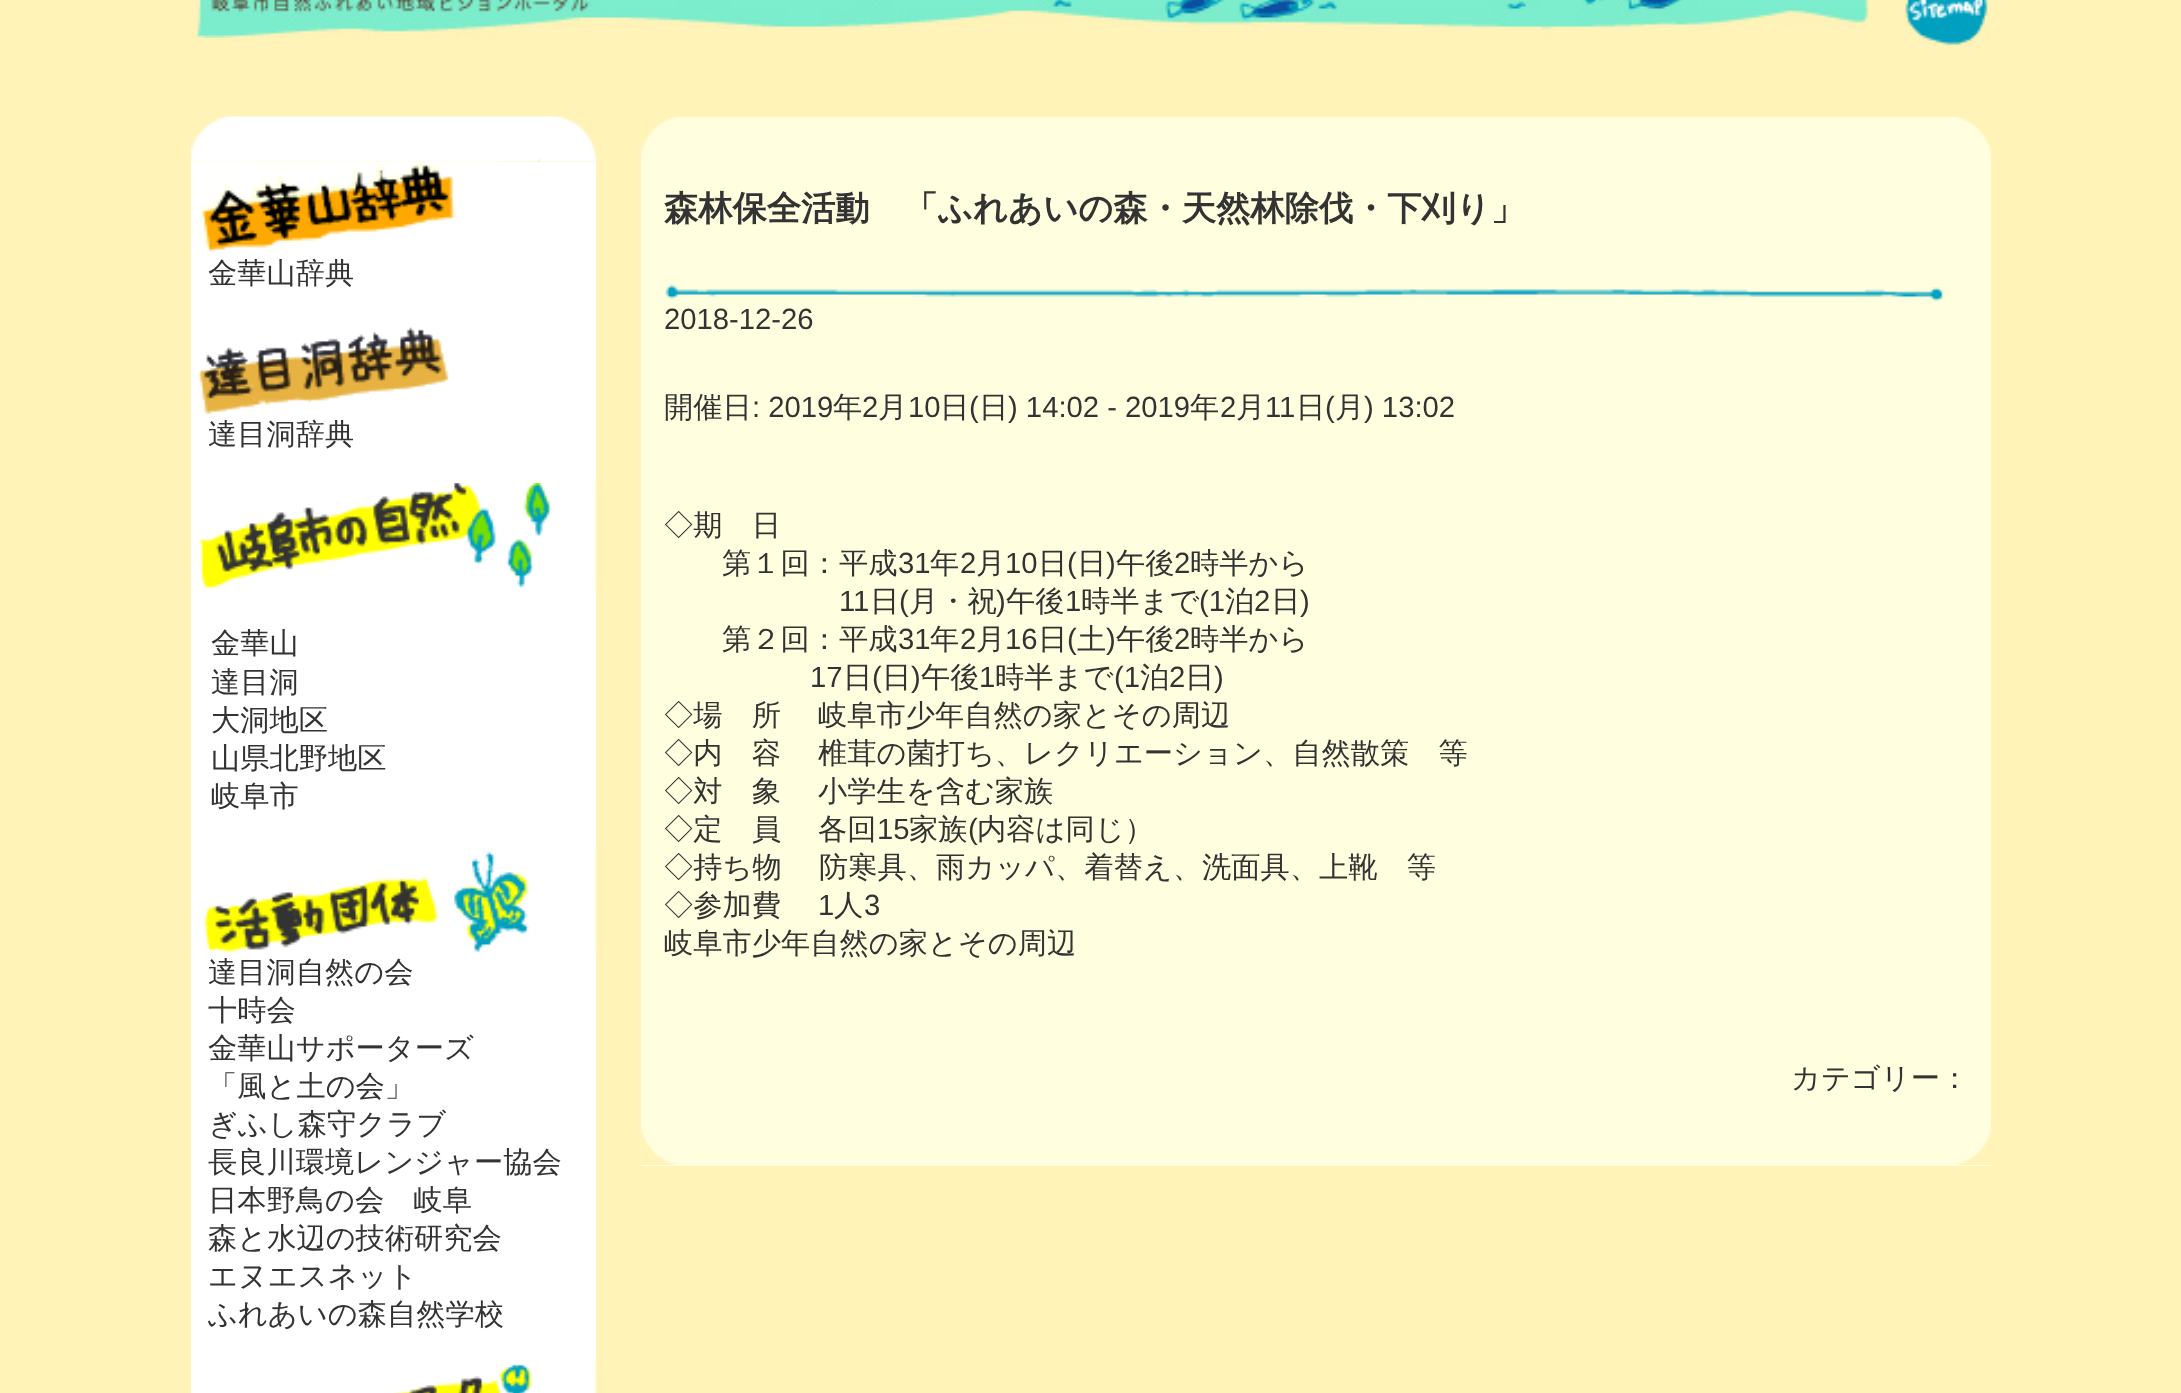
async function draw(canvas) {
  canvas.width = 2181
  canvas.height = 1393
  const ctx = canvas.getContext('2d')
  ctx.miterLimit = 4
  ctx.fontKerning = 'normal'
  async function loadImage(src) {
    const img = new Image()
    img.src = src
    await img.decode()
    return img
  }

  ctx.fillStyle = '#fff3b8'
  ctx.fillRect(0, 0, 2181, 1393)
  ctx.drawImage(await loadImage('image0.png'), 195, 0, 1674, 38)
  ctx.drawImage(await loadImage('image1.png'), 1905, 0, 86, 49)
  ctx.drawImage(await loadImage('image2.png'), 191, 116, 406, 46)
  ctx.fillStyle = '#fff'
  ctx.fillRect(191, 162, 405, 1231)
  ctx.drawImage(await loadImage('image3.png'), 191, 161, 309, 91)
  ctx.font = '500 29.25px WenQuanYi Zen Hei'
  ctx.fillStyle = '#333'
  ctx.fillText('金華山辞典', 208, 283)
  ctx.drawImage(await loadImage('image4.png'), 199, 327, 250, 88)
  ctx.fillText('達目洞辞典', 208, 444)
  ctx.drawImage(await loadImage('image5.png'), 199, 483, 398, 106)
  ctx.fillText('金華山', 211, 653)
  ctx.fillText('達目洞', 211, 692)
  ctx.fillText('大洞地区', 211, 730)
  ctx.fillText('山県北野地区', 211, 768)
  ctx.fillText('岐阜市', 211, 806)
  ctx.drawImage(await loadImage('image6.png'), 204, 847, 393, 107)
  ctx.fillText('達目洞自然の会', 208, 982)
  ctx.fillText('十時会', 208, 1020)
  ctx.fillText('金華山サポーターズ', 208, 1058)
  ctx.fillText('「風と土の会」', 208, 1096)
  ctx.fillText('ぎふし森守クラブ', 208, 1134)
  ctx.fillText('長良川環境レンジャー協会', 208, 1172)
  ctx.fillText('日本野鳥の会　岐阜', 208, 1210)
  ctx.fillText('森と水辺の技術研究会', 208, 1248)
  ctx.fillText('エヌエスネット', 208, 1286)
  ctx.fillText('ふれあいの森自然学校', 208, 1324)
  ctx.drawImage(await loadImage('image7.png'), 393, 1363, 204, 30)
  ctx.fillStyle = '#ffffe0'
  ctx.fillRect(641, 117, 1350, 1010)
  ctx.drawImage(await loadImage('image8.png'), 641, 116, 36, 38)
  ctx.drawImage(await loadImage('image9.png'), 1955, 116, 37, 39)
  ctx.font = 'bold 34.25px WenQuanYi Zen Hei'
  ctx.fillStyle = '#333'
  ctx.fillText('森林保全活動　「ふれあいの森・天然林除伐・下刈り」', 664, 220)
  ctx.drawImage(await loadImage('image10.png'), 665, 284, 1278, 17)
  ctx.font = '29.25px Liberation Sans'
  ctx.fillText('2018-12-26', 664, 329)
  ctx.font = '500 29.25px WenQuanYi Zen Hei'
  ctx.fillText('開催日', 664, 417)
  ctx.font = '29.25px Liberation Sans'
  ctx.fillText(': 2019', 752, 417)
  ctx.font = '500 29.25px WenQuanYi Zen Hei'
  ctx.fillText('年', 833, 417)
  ctx.font = '29.25px Liberation Sans'
  ctx.fillText('2', 862, 417)
  ctx.font = '500 29.25px WenQuanYi Zen Hei'
  ctx.fillText('月', 878, 417)
  ctx.font = '29.25px Liberation Sans'
  ctx.fillText('10', 908, 417)
  ctx.font = '500 29.25px WenQuanYi Zen Hei'
  ctx.fillText('日', 940, 417)
  ctx.font = '29.25px Liberation Sans'
  ctx.fillText('(', 969, 417)
  ctx.font = '500 29.25px WenQuanYi Zen Hei'
  ctx.fillText('日', 979, 417)
  ctx.font = '29.25px Liberation Sans'
  ctx.fillText(') 14:02 - 2019', 1008, 417)
  ctx.font = '500 29.25px WenQuanYi Zen Hei'
  ctx.fillText('年', 1190, 417)
  ctx.font = '29.25px Liberation Sans'
  ctx.fillText('2', 1220, 417)
  ctx.font = '500 29.25px WenQuanYi Zen Hei'
  ctx.fillText('月', 1236, 417)
  ctx.font = '29.25px Liberation Sans'
  ctx.fillText('11', 1265, 417)
  ctx.font = '500 29.25px WenQuanYi Zen Hei'
  ctx.fillText('日', 1296, 417)
  ctx.font = '29.25px Liberation Sans'
  ctx.fillText('(', 1325, 417)
  ctx.font = '500 29.25px WenQuanYi Zen Hei'
  ctx.fillText('月', 1335, 417)
  ctx.font = '29.25px Liberation Sans'
  ctx.fillText(') 13:02', 1364, 417)
  ctx.font = '500 29.25px WenQuanYi Zen Hei'
  ctx.fillText('◇期　日', 664, 535)
  ctx.fillText('第１回：平成', 722, 573)
  ctx.font = '29.25px Liberation Sans'
  ctx.fillText('31', 898, 573)
  ctx.font = '500 29.25px WenQuanYi Zen Hei'
  ctx.fillText('年', 930, 573)
  ctx.font = '29.25px Liberation Sans'
  ctx.fillText('2', 960, 573)
  ctx.font = '500 29.25px WenQuanYi Zen Hei'
  ctx.fillText('月', 976, 573)
  ctx.font = '29.25px Liberation Sans'
  ctx.fillText('10', 1005, 573)
  ctx.font = '500 29.25px WenQuanYi Zen Hei'
  ctx.fillText('日', 1038, 573)
  ctx.font = '29.25px Liberation Sans'
  ctx.fillText('(', 1067, 573)
  ctx.font = '500 29.25px WenQuanYi Zen Hei'
  ctx.fillText('日', 1077, 573)
  ctx.font = '29.25px Liberation Sans'
  ctx.fillText(')', 1106, 573)
  ctx.font = '500 29.25px WenQuanYi Zen Hei'
  ctx.fillText('午後', 1116, 573)
  ctx.font = '29.25px Liberation Sans'
  ctx.fillText('2', 1174, 573)
  ctx.font = '500 29.25px WenQuanYi Zen Hei'
  ctx.fillText('時半から', 1190, 573)
  ctx.font = '29.25px Liberation Sans'
  ctx.fillText('11', 839, 611)
  ctx.font = '500 29.25px WenQuanYi Zen Hei'
  ctx.fillText('日', 870, 611)
  ctx.font = '29.25px Liberation Sans'
  ctx.fillText('(', 899, 611)
  ctx.font = '500 29.25px WenQuanYi Zen Hei'
  ctx.fillText('月・祝', 909, 611)
  ctx.font = '29.25px Liberation Sans'
  ctx.fillText(')', 996, 611)
  ctx.font = '500 29.25px WenQuanYi Zen Hei'
  ctx.fillText('午後', 1006, 611)
  ctx.font = '29.25px Liberation Sans'
  ctx.fillText('1', 1065, 611)
  ctx.font = '500 29.25px WenQuanYi Zen Hei'
  ctx.fillText('時半まで', 1081, 611)
  ctx.font = '29.25px Liberation Sans'
  ctx.fillText('(1', 1199, 611)
  ctx.font = '500 29.25px WenQuanYi Zen Hei'
  ctx.fillText('泊', 1225, 611)
  ctx.font = '29.25px Liberation Sans'
  ctx.fillText('2', 1254, 611)
  ctx.font = '500 29.25px WenQuanYi Zen Hei'
  ctx.fillText('日', 1271, 611)
  ctx.font = '29.25px Liberation Sans'
  ctx.fillText(')', 1300, 611)
  ctx.font = '500 29.25px WenQuanYi Zen Hei'
  ctx.fillText('第２回：平成', 722, 649)
  ctx.font = '29.25px Liberation Sans'
  ctx.fillText('31', 898, 649)
  ctx.font = '500 29.25px WenQuanYi Zen Hei'
  ctx.fillText('年', 930, 649)
  ctx.font = '29.25px Liberation Sans'
  ctx.fillText('2', 960, 649)
  ctx.font = '500 29.25px WenQuanYi Zen Hei'
  ctx.fillText('月', 976, 649)
  ctx.font = '29.25px Liberation Sans'
  ctx.fillText('16', 1005, 649)
  ctx.font = '500 29.25px WenQuanYi Zen Hei'
  ctx.fillText('日', 1038, 649)
  ctx.font = '29.25px Liberation Sans'
  ctx.fillText('(', 1067, 649)
  ctx.font = '500 29.25px WenQuanYi Zen Hei'
  ctx.fillText('土', 1077, 649)
  ctx.font = '29.25px Liberation Sans'
  ctx.fillText(')', 1106, 649)
  ctx.font = '500 29.25px WenQuanYi Zen Hei'
  ctx.fillText('午後', 1116, 649)
  ctx.font = '29.25px Liberation Sans'
  ctx.fillText('2', 1174, 649)
  ctx.font = '500 29.25px WenQuanYi Zen Hei'
  ctx.fillText('時半から', 1190, 649)
  ctx.font = '29.25px Liberation Sans'
  ctx.fillText('17', 810, 687)
  ctx.font = '500 29.25px WenQuanYi Zen Hei'
  ctx.fillText('日', 843, 687)
  ctx.font = '29.25px Liberation Sans'
  ctx.fillText('(', 872, 687)
  ctx.font = '500 29.25px WenQuanYi Zen Hei'
  ctx.fillText('日', 882, 687)
  ctx.font = '29.25px Liberation Sans'
  ctx.fillText(')', 911, 687)
  ctx.font = '500 29.25px WenQuanYi Zen Hei'
  ctx.fillText('午後', 921, 687)
  ctx.font = '29.25px Liberation Sans'
  ctx.fillText('1', 979, 687)
  ctx.font = '500 29.25px WenQuanYi Zen Hei'
  ctx.fillText('時半まで', 995, 687)
  ctx.font = '29.25px Liberation Sans'
  ctx.fillText('(1', 1114, 687)
  ctx.font = '500 29.25px WenQuanYi Zen Hei'
  ctx.fillText('泊', 1140, 687)
  ctx.font = '29.25px Liberation Sans'
  ctx.fillText('2', 1169, 687)
  ctx.font = '500 29.25px WenQuanYi Zen Hei'
  ctx.fillText('日', 1185, 687)
  ctx.font = '29.25px Liberation Sans'
  ctx.fillText(')', 1214, 687)
  ctx.font = '500 29.25px WenQuanYi Zen Hei'
  ctx.fillText('◇場　所', 664, 725)
  ctx.fillText('岐阜市少年自然の家とその周辺', 818, 725)
  ctx.fillText('◇内　容', 664, 763)
  ctx.fillText('椎茸の菌打ち、レクリエーション、自然散策　等', 818, 763)
  ctx.fillText('◇対　象', 664, 801)
  ctx.fillText('小学生を含む家族', 818, 801)
  ctx.fillText('◇定　員', 664, 839)
  ctx.fillText('各回', 818, 839)
  ctx.font = '29.25px Liberation Sans'
  ctx.fillText('15', 877, 839)
  ctx.font = '500 29.25px WenQuanYi Zen Hei'
  ctx.fillText('家族', 909, 839)
  ctx.font = '29.25px Liberation Sans'
  ctx.fillText('(', 968, 839)
  ctx.font = '500 29.25px WenQuanYi Zen Hei'
  ctx.fillText('内容は同じ）', 977, 839)
  ctx.fillText('◇持ち物', 664, 877)
  ctx.fillText('防寒具、雨カッパ、着替え、洗面具、上靴　等', 819, 877)
  ctx.fillText('◇参加費', 664, 915)
  ctx.font = '29.25px Liberation Sans'
  ctx.fillText('1', 818, 915)
  ctx.font = '500 29.25px WenQuanYi Zen Hei'
  ctx.fillText('人', 834, 915)
  ctx.font = '29.25px Liberation Sans'
  ctx.fillText('3', 864, 915)
  ctx.font = '500 29.25px WenQuanYi Zen Hei'
  ctx.fillText('岐阜市少年自然の家とその周辺', 664, 953)
  ctx.fillText('カテゴリー：', 1791, 1088)
  ctx.fillStyle = '#ffffe0'
  ctx.fillRect(641, 1127, 1350, 39)
  ctx.drawImage(await loadImage('image11.png'), 641, 1127, 36, 38)
  ctx.drawImage(await loadImage('image12.png'), 1955, 1127, 37, 38)
}

draw(document.querySelector('canvas'))
